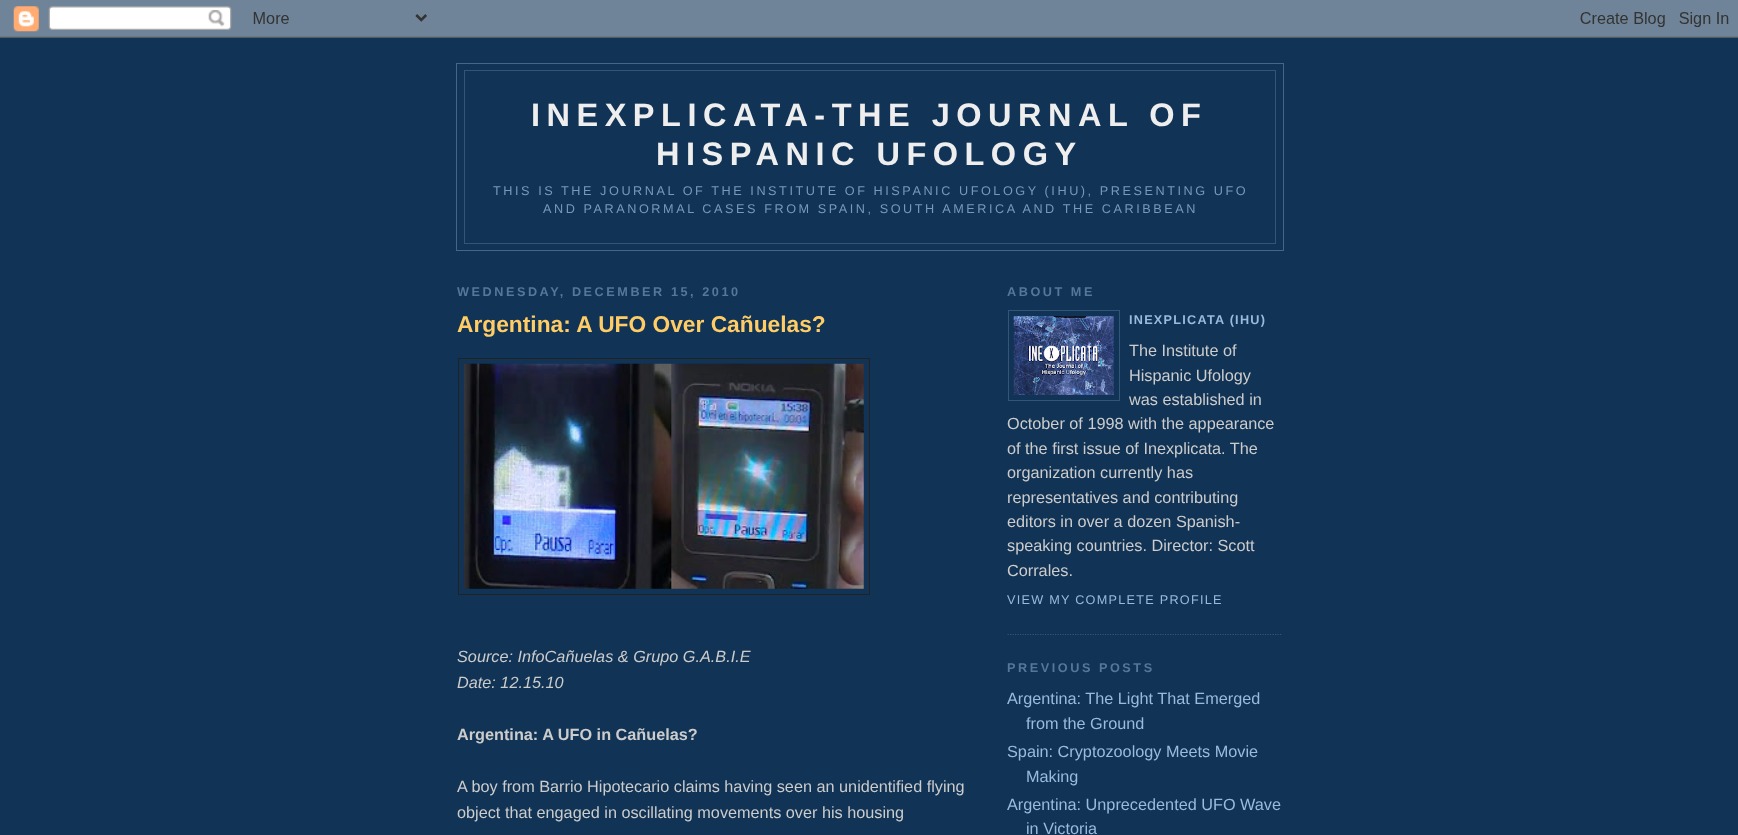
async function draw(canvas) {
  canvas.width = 1738
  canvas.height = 835
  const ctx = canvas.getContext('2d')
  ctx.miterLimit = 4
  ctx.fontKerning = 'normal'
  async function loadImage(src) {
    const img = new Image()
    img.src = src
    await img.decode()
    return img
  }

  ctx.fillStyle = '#135'
  ctx.fillRect(0, 0, 1738, 835)
  ctx.drawImage(await loadImage('image0.png'), 0, 0, 1738, 38)
  ctx.strokeStyle = '#468'
  ctx.strokeRect(456.5, 63.5, 827, 187)
  ctx.fillStyle = '#357'
  ctx.fillRect(464, 70, 812, 1)
  ctx.fillRect(1275, 70, 1, 174)
  ctx.fillRect(464, 70, 1, 113)
  ctx.letterSpacing = '6.5px'
  ctx.font = 'bold 32.5px Liberation Sans'
  ctx.fillStyle = '#eee'
  ctx.fillText('INEXPLICATA-THE JOURNAL OF', 531, 126)
  ctx.fillText('HISPANIC UFOLOGY', 656, 165)
  ctx.fillStyle = '#357'
  ctx.fillRect(464, 243, 812, 1)
  ctx.fillRect(464, 183, 1, 61)
  ctx.letterSpacing = '2.55px'
  ctx.font = '12.68px Liberation Sans'
  ctx.fillStyle = '#79b'
  ctx.fillText('THIS IS THE JOURNAL OF THE INSTITUTE OF HISPANIC UFOLOGY (IHU), PRESENTING UFO', 493, 195)
  ctx.fillText('AND PARANORMAL CASES FROM SPAIN, SOUTH AMERICA AND THE CARIBBEAN', 543, 213)
  ctx.font = 'bold 12.68px Liberation Sans'
  ctx.fillStyle = '#579'
  ctx.fillText('WEDNESDAY, DECEMBER 15, 2010', 457, 296)
  ctx.letterSpacing = '0px'
  ctx.font = 'bold 22.75px Liberation Sans'
  ctx.fillStyle = '#fc6'
  ctx.fillText('Argentina: A UFO Over Cañuelas?', 457, 332)
  ctx.strokeStyle = '#222'
  ctx.strokeRect(458.5, 358.5, 411, 236)
  ctx.drawImage(await loadImage('image1.png'), 463, 363, 401, 226)
  ctx.font = 'italic 16.25px Liberation Sans'
  ctx.fillStyle = '#ccc'
  ctx.fillText('Source: InfoCañuelas & Grupo G.A.B.I.E', 457, 662)
  ctx.fillText('Date: 12.15.10', 457, 688)
  ctx.font = 'bold 16.25px Liberation Sans'
  ctx.fillText('Argentina: A UFO in Cañuelas?', 457, 740)
  ctx.font = '16.25px Liberation Sans'
  ctx.fillText('A boy from Barrio Hipotecario claims having seen an unidentified flying', 457, 792)
  ctx.fillText('object that engaged in oscillating movements over his housing', 457, 818)
  ctx.beginPath()
  ctx.moveTo(1007.5, 634.5)
  ctx.lineTo(1282.5, 634.5)
  ctx.strokeStyle = '#357'
  ctx.lineWidth = 1.2
  ctx.setLineDash([1.25, 1.25])
  ctx.stroke()
  ctx.letterSpacing = '2.55px'
  ctx.font = 'bold 12.68px Liberation Sans'
  ctx.fillStyle = '#579'
  ctx.fillText('ABOUT ME', 1007, 296)
  ctx.lineWidth = 1
  ctx.setLineDash([])
  ctx.strokeRect(1008.5, 310.5, 111, 90)
  ctx.drawImage(await loadImage('image2.png'), 1013, 316, 101, 79)
  ctx.letterSpacing = '1.25px'
  ctx.fillStyle = '#9bd'
  ctx.fillText('INEXPLICATA (IHU)', 1129, 324)
  ctx.letterSpacing = '0px'
  ctx.font = '16.25px Liberation Sans'
  ctx.fillStyle = '#ccc'
  ctx.fillText('The Institute of', 1129, 356)
  ctx.fillText('Hispanic Ufology', 1129, 381)
  ctx.fillText('was established in', 1129, 405)
  ctx.fillText('October of 1998 with the appearance', 1007, 429)
  ctx.fillText('of the first issue of Inexplicata. The', 1007, 454)
  ctx.fillText('organization currently has', 1007, 478)
  ctx.fillText('representatives and contributing', 1007, 503)
  ctx.fillText('editors in over a dozen Spanish-', 1007, 527)
  ctx.fillText('speaking countries. Director: Scott', 1007, 551)
  ctx.fillText('Corrales.', 1007, 576)
  ctx.letterSpacing = '1.25px'
  ctx.font = '12.68px Liberation Sans'
  ctx.fillStyle = '#9bd'
  ctx.fillText('VIEW MY COMPLETE PROFILE', 1007, 604)
  ctx.letterSpacing = '2.55px'
  ctx.font = 'bold 12.68px Liberation Sans'
  ctx.fillStyle = '#579'
  ctx.fillText('PREVIOUS POSTS', 1007, 672)
  ctx.letterSpacing = '0px'
  ctx.font = '16.25px Liberation Sans'
  ctx.fillStyle = '#9bd'
  ctx.fillText('Argentina: The Light That Emerged', 1007, 704)
  ctx.fillText('from the Ground', 1026, 729)
  ctx.fillText('Spain: Cryptozoology Meets Movie', 1007, 757)
  ctx.fillText('Making', 1026, 782)
  ctx.fillText('Argentina: Unprecedented UFO Wave', 1007, 810)
  ctx.fillText('in Victoria', 1026, 834)
}

draw(document.querySelector('canvas'))
